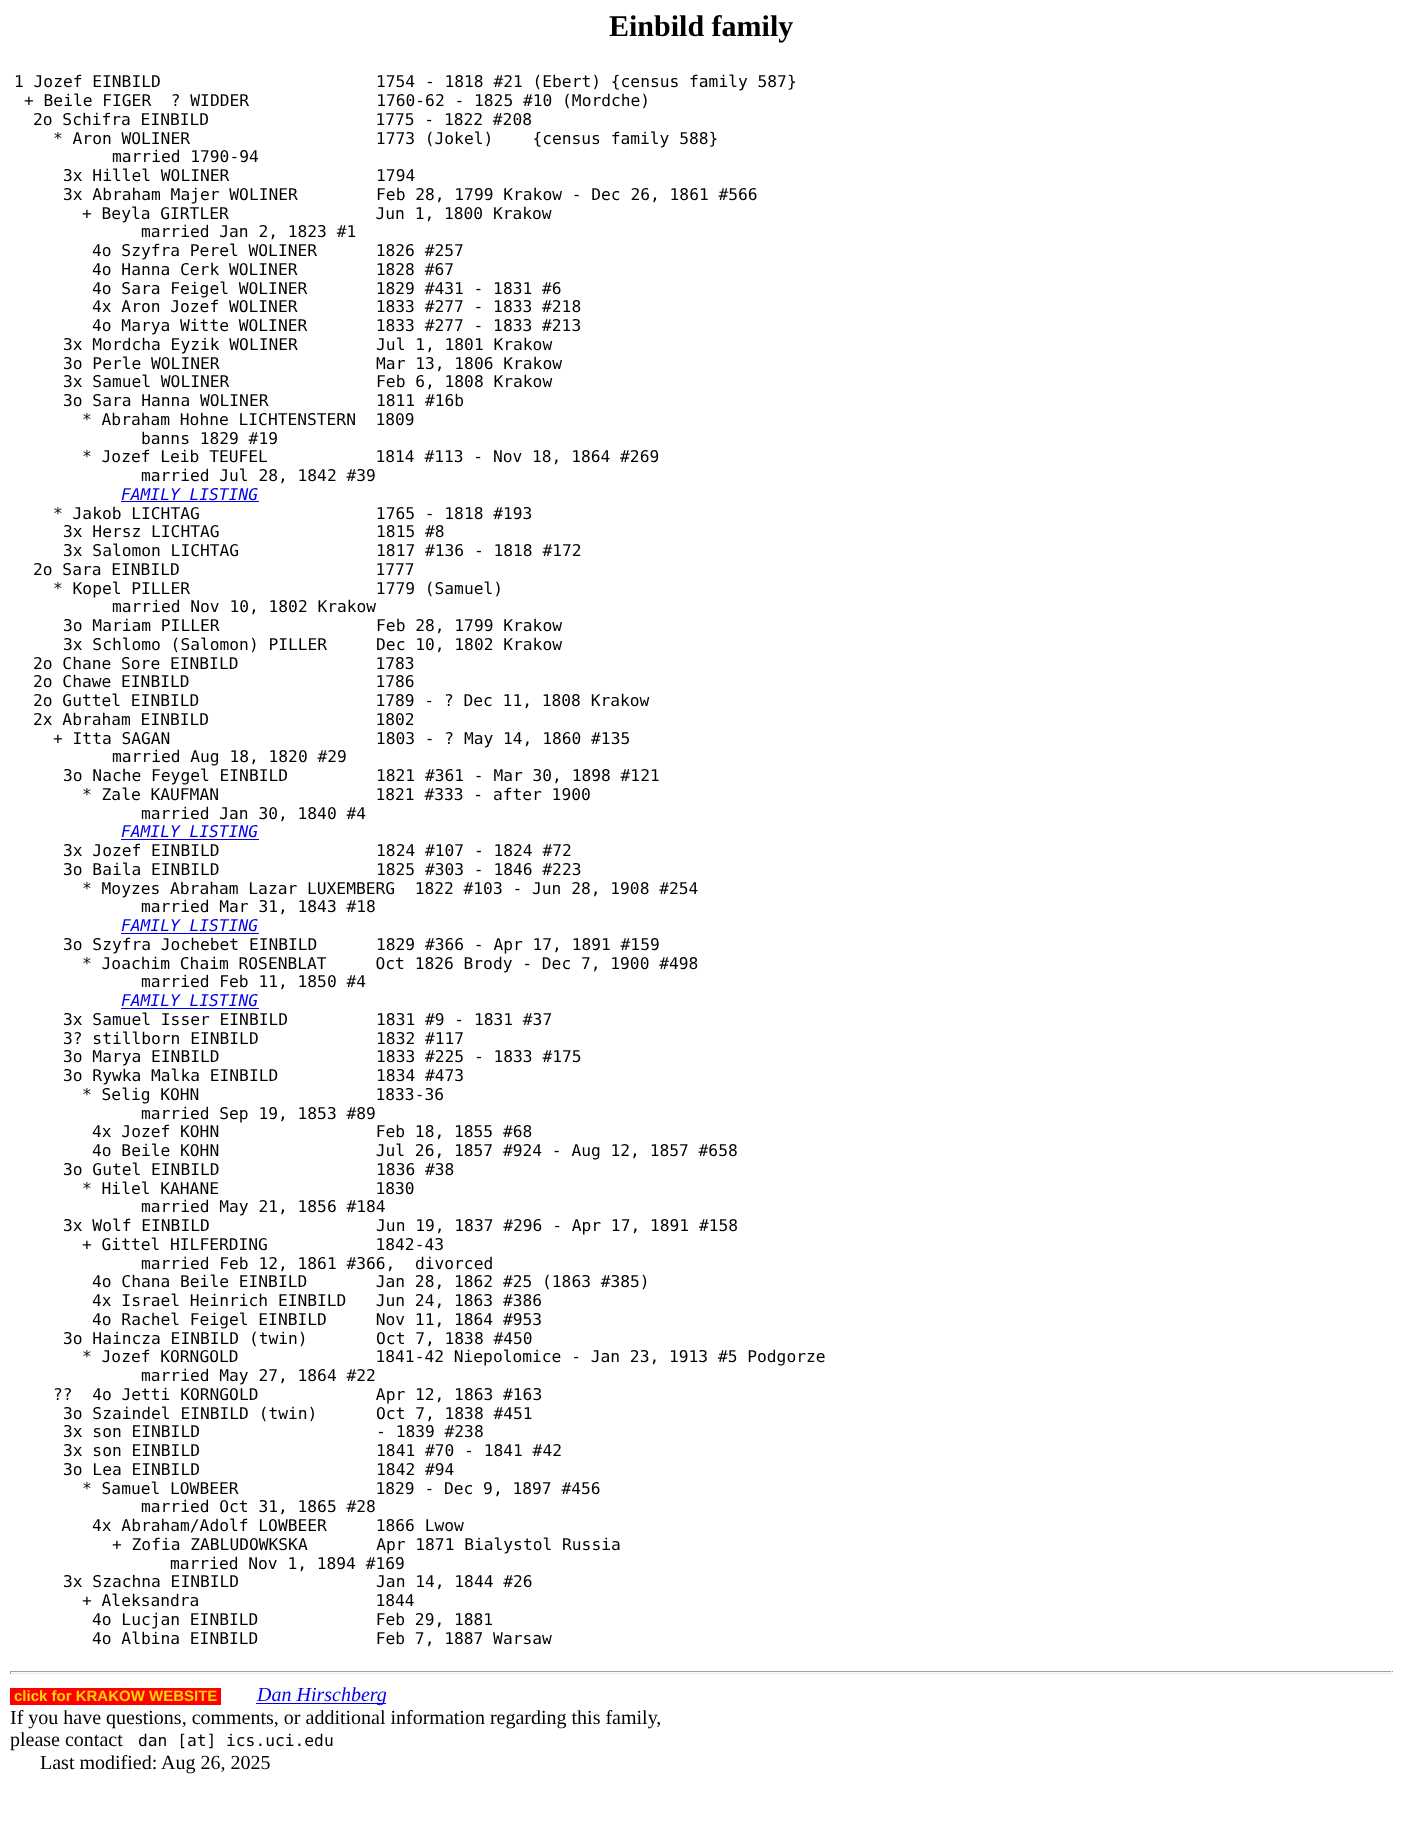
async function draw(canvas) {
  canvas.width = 1402
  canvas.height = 1838
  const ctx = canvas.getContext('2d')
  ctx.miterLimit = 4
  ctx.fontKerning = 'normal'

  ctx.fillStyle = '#fff'
  ctx.fillRect(0, 0, 1402, 1838)
  ctx.font = 'bold 30px Liberation Serif'
  ctx.fillStyle = '#000'
  ctx.fillText('Einbild family', 609, 36)
  ctx.font = '16.25px DejaVu Sans Mono'
  ctx.fillText('1 Jozef EINBILD                      1754 - 1818 #21 (Ebert) {census family 587}', 14, 87)
  ctx.fillText('+ Beile FIGER  ? WIDDER             1760-62 - 1825 #10 (Mordche)', 24, 106)
  ctx.fillText('2o Schifra EINBILD                 1775 - 1822 #208', 33, 125)
  ctx.fillText('* Aron WOLINER                   1773 (Jokel)    {census family 588}', 53, 144)
  ctx.fillText('married 1790-94', 112, 162)
  ctx.fillText('3x Hillel WOLINER               1794', 63, 181)
  ctx.fillText('3x Abraham Majer WOLINER        Feb 28, 1799 Krakow - Dec 26, 1861 #566', 63, 200)
  ctx.fillText('+ Beyla GIRTLER               Jun 1, 1800 Krakow', 82, 219)
  ctx.fillText('married Jan 2, 1823 #1', 141, 237)
  ctx.fillText('4o Szyfra Perel WOLINER      1826 #257', 92, 256)
  ctx.fillText('4o Hanna Cerk WOLINER        1828 #67', 92, 275)
  ctx.fillText('4o Sara Feigel WOLINER       1829 #431 - 1831 #6', 92, 294)
  ctx.fillText('4x Aron Jozef WOLINER        1833 #277 - 1833 #218', 92, 312)
  ctx.fillText('4o Marya Witte WOLINER       1833 #277 - 1833 #213', 92, 331)
  ctx.fillText('3x Mordcha Eyzik WOLINER        Jul 1, 1801 Krakow', 63, 350)
  ctx.fillText('3o Perle WOLINER                Mar 13, 1806 Krakow', 63, 369)
  ctx.fillText('3x Samuel WOLINER               Feb 6, 1808 Krakow', 63, 387)
  ctx.fillText('3o Sara Hanna WOLINER', 63, 406)
  ctx.fillText('1811 #16b', 376, 406)
  ctx.fillText('* Abraham Hohne LICHTENSTERN  1809', 82, 425)
  ctx.fillText('banns 1829 #19', 141, 444)
  ctx.fillText('* Jozef Leib TEUFEL           1814 #113 - Nov 18, 1864 #269', 82, 462)
  ctx.fillText('married Jul 28, 1842 #39', 141, 481)
  ctx.font = 'italic 16.25px DejaVu Sans Mono'
  ctx.fillStyle = '#00e'
  ctx.fillText('FAMILY LISTING', 121, 500)
  ctx.fillRect(121, 501, 138, 1)
  ctx.font = '16.25px DejaVu Sans Mono'
  ctx.fillStyle = '#000'
  ctx.fillText('* Jakob LICHTAG                  1765 - 1818 #193', 53, 519)
  ctx.fillText('3x Hersz LICHTAG                1815 #8', 63, 537)
  ctx.fillText('3x Salomon LICHTAG              1817 #136 - 1818 #172', 63, 556)
  ctx.fillText('2o Sara EINBILD                    1777', 33, 575)
  ctx.fillText('* Kopel PILLER                   1779 (Samuel)', 53, 594)
  ctx.fillText('married Nov 10, 1802 Krakow', 112, 612)
  ctx.fillText('3o Mariam PILLER                Feb 28, 1799 Krakow', 63, 631)
  ctx.fillText('3x Schlomo (Salomon) PILLER     Dec 10, 1802 Krakow', 63, 650)
  ctx.fillText('2o Chane Sore EINBILD              1783', 33, 669)
  ctx.fillText('2o Chawe EINBILD                   1786', 33, 687)
  ctx.fillText('2o Guttel EINBILD                  1789 - ? Dec 11, 1808 Krakow', 33, 706)
  ctx.fillText('2x Abraham EINBILD                 1802', 33, 725)
  ctx.fillText('+ Itta SAGAN                     1803 - ? May 14, 1860 #135', 53, 744)
  ctx.fillText('married Aug 18, 1820 #29', 112, 762)
  ctx.fillText('3o Nache Feygel EINBILD', 63, 781)
  ctx.fillText('1821 #361 - Mar 30, 1898 #121', 376, 781)
  ctx.fillText('* Zale KAUFMAN                1821 #333 - after 1900', 82, 800)
  ctx.fillText('married Jan 30, 1840 #4', 141, 819)
  ctx.font = 'italic 16.25px DejaVu Sans Mono'
  ctx.fillStyle = '#00e'
  ctx.fillText('FAMILY LISTING', 121, 837)
  ctx.fillRect(121, 839, 138, 1)
  ctx.font = '16.25px DejaVu Sans Mono'
  ctx.fillStyle = '#000'
  ctx.fillText('3x Jozef EINBILD                1824 #107 - 1824 #72', 63, 856)
  ctx.fillText('3o Baila EINBILD', 63, 875)
  ctx.fillText('1825 #303 - 1846 #223', 376, 875)
  ctx.fillText('* Moyzes Abraham Lazar LUXEMBERG  1822 #103 - Jun 28, 1908 #254', 82, 894)
  ctx.fillText('married Mar 31, 1843 #18', 141, 912)
  ctx.font = 'italic 16.25px DejaVu Sans Mono'
  ctx.fillStyle = '#00e'
  ctx.fillText('FAMILY LISTING', 121, 931)
  ctx.fillRect(121, 933, 138, 1)
  ctx.font = '16.25px DejaVu Sans Mono'
  ctx.fillStyle = '#000'
  ctx.fillText('3o Szyfra Jochebet EINBILD', 63, 950)
  ctx.fillText('1829 #366 - Apr 17, 1891 #159', 376, 950)
  ctx.fillText('* Joachim Chaim ROSENBLAT     Oct 1826 Brody - Dec 7, 1900 #498', 82, 969)
  ctx.fillText('married Feb 11, 1850 #4', 141, 987)
  ctx.font = 'italic 16.25px DejaVu Sans Mono'
  ctx.fillStyle = '#00e'
  ctx.fillText('FAMILY LISTING', 121, 1006)
  ctx.fillRect(121, 1008, 138, 1)
  ctx.font = '16.25px DejaVu Sans Mono'
  ctx.fillStyle = '#000'
  ctx.fillText('3x Samuel Isser EINBILD         1831 #9 - 1831 #37', 63, 1025)
  ctx.fillText('3? stillborn EINBILD            1832 #117', 63, 1044)
  ctx.fillText('3o Marya EINBILD                1833 #225 - 1833 #175', 63, 1062)
  ctx.fillText('3o Rywka Malka EINBILD          1834 #473', 63, 1081)
  ctx.fillText('* Selig KOHN                  1833-36', 82, 1100)
  ctx.fillText('married Sep 19, 1853 #89', 141, 1119)
  ctx.fillText('4x Jozef KOHN                Feb 18, 1855 #68', 92, 1137)
  ctx.fillText('4o Beile KOHN                Jul 26, 1857 #924 - Aug 12, 1857 #658', 92, 1156)
  ctx.fillText('3o Gutel EINBILD                1836 #38', 63, 1175)
  ctx.fillText('* Hilel KAHANE                1830', 82, 1194)
  ctx.fillText('married May 21, 1856 #184', 141, 1212)
  ctx.fillText('3x Wolf EINBILD                 Jun 19, 1837 #296 - Apr 17, 1891 #158', 63, 1231)
  ctx.fillText('+ Gittel HILFERDING           1842-43', 82, 1250)
  ctx.fillText('married Feb 12, 1861 #366,  divorced', 141, 1269)
  ctx.fillText('4o Chana Beile EINBILD       Jan 28, 1862 #25 (1863 #385)', 92, 1287)
  ctx.fillText('4x Israel Heinrich EINBILD   Jun 24, 1863 #386', 92, 1306)
  ctx.fillText('4o Rachel Feigel EINBILD     Nov 11, 1864 #953', 92, 1325)
  ctx.fillText('3o Haincza EINBILD (twin)       Oct 7, 1838 #450', 63, 1344)
  ctx.fillText('* Jozef KORNGOLD              1841-42 Niepolomice - Jan 23, 1913 #5 Podgorze', 82, 1362)
  ctx.fillText('married May 27, 1864 #22', 141, 1381)
  ctx.fillText('??  4o Jetti KORNGOLD            Apr 12, 1863 #163', 53, 1400)
  ctx.fillText('3o Szaindel EINBILD (twin)      Oct 7, 1838 #451', 63, 1419)
  ctx.fillText('3x son EINBILD                  - 1839 #238', 63, 1437)
  ctx.fillText('3x son EINBILD                  1841 #70 - 1841 #42', 63, 1456)
  ctx.fillText('3o Lea EINBILD                  1842 #94', 63, 1475)
  ctx.fillText('* Samuel LOWBEER              1829 - Dec 9, 1897 #456', 82, 1494)
  ctx.fillText('married Oct 31, 1865 #28', 141, 1512)
  ctx.fillText('4x Abraham/Adolf LOWBEER     1866 Lwow', 92, 1531)
  ctx.fillText('+ Zofia ZABLUDOWKSKA       Apr 1871 Bialystol Russia', 112, 1550)
  ctx.fillText('married Nov 1, 1894 #169', 170, 1569)
  ctx.fillText('3x Szachna EINBILD              Jan 14, 1844 #26', 63, 1587)
  ctx.fillText('+ Aleksandra                  1844', 82, 1606)
  ctx.fillText('4o Lucjan EINBILD            Feb 29, 1881', 92, 1625)
  ctx.fillText('4o Albina EINBILD            Feb 7, 1887 Warsaw', 92, 1644)
  ctx.fillStyle = '#9f9f9f'
  ctx.fillRect(10, 1671, 1383, 1)
  ctx.fillStyle = '#eee'
  ctx.fillRect(1391, 1671, 1, 3)
  ctx.fillRect(10, 1673, 1383, 1)
  ctx.fillStyle = '#9f9f9f'
  ctx.fillRect(10, 1671, 1, 3)
  ctx.fillStyle = '#f00'
  ctx.fillRect(10, 1688, 211, 17)
  ctx.font = 'bold 15px Liberation Sans'
  ctx.fillStyle = '#ffd700'
  ctx.fillText('click for KRAKOW WEBSITE', 14, 1701)
  ctx.fillStyle = '#00e'
  ctx.fillRect(256, 1703, 130, 1)
  ctx.font = 'italic 20px Liberation Serif'
  ctx.fillText('Dan Hirschberg', 257, 1701)
  ctx.font = '20px Liberation Serif'
  ctx.fillStyle = '#000'
  ctx.fillText('If you have questions, comments, or additional information regarding this family,', 10, 1724)
  ctx.fillText('please contact', 10, 1746)
  ctx.font = '16.25px DejaVu Sans Mono'
  ctx.fillText('dan [at] ics.uci.edu', 138, 1746)
  ctx.font = '20px Liberation Serif'
  ctx.fillText('Last modified: Aug 26, 2025', 40, 1769)
}

draw(document.querySelector('canvas'))
